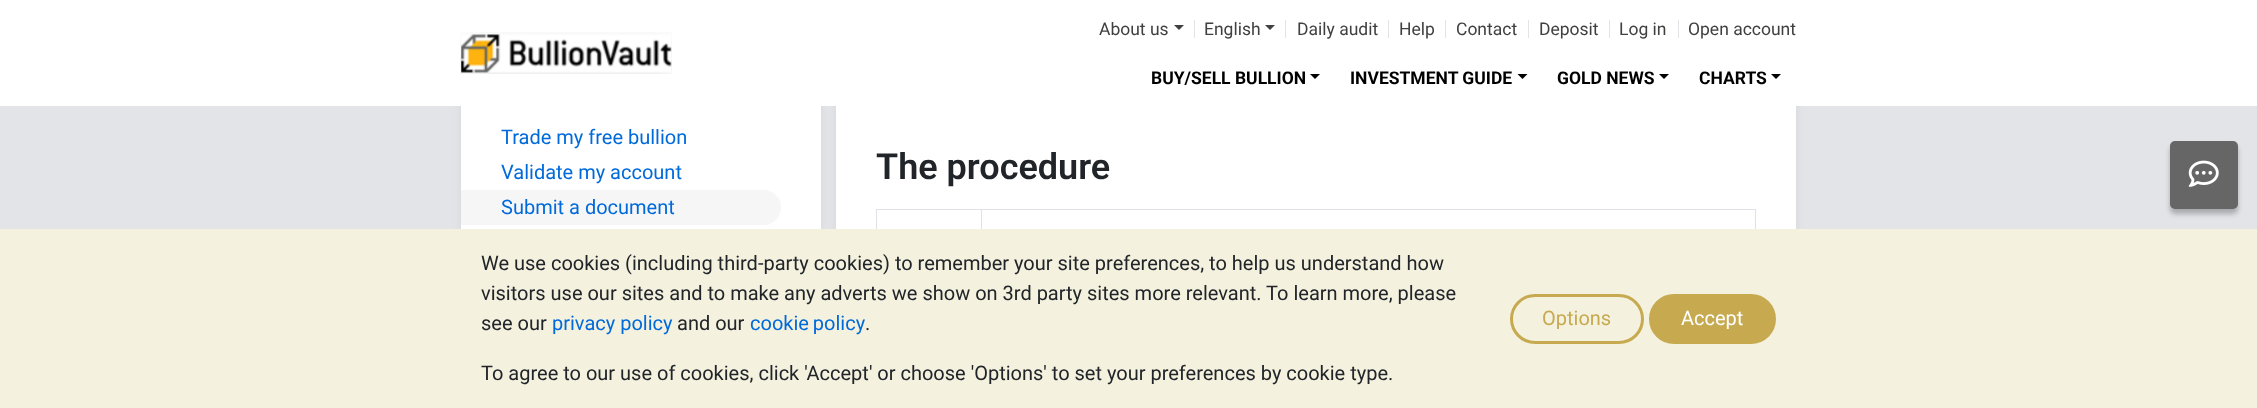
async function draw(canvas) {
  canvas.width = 2257
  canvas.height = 408
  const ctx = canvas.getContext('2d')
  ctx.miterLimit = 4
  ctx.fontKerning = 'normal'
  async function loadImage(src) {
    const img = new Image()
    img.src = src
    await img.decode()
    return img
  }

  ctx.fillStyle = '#e2e4e8'
  ctx.fillRect(0, 0, 2257, 408)
  ctx.fillStyle = '#0000000d'
  ctx.filter = 'blur(5px)'
  ctx.beginPath()
  ctx.roundRect(461, -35, 360, 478, 20)
  ctx.fill()
  ctx.filter = 'none'
  ctx.fillStyle = '#fff'
  ctx.fillRect(461, 106, 360, 123)
  ctx.fillStyle = '#0000000d'
  ctx.filter = 'blur(5px)'
  ctx.beginPath()
  ctx.roundRect(836, -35, 960, 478, 20)
  ctx.fill()
  ctx.filter = 'none'
  ctx.fillStyle = '#fff'
  ctx.fillRect(0, 0, 2257, 106)
  ctx.drawImage(await loadImage('image0.png'), 460, 32, 212, 42)
  ctx.font = '17.5px Roboto'
  ctx.fillStyle = '#404040'
  ctx.fillText('About us', 1099, 35)
  ctx.beginPath()
  ctx.moveTo(1174, 25)
  ctx.lineTo(1184, 25)
  ctx.lineTo(1179, 30)
  ctx.closePath()
  ctx.fill()
  ctx.fillStyle = '#e2e4e8'
  ctx.fillRect(1194, 20, 1, 18)
  ctx.fillStyle = '#404040'
  ctx.fillText('English', 1204, 35)
  ctx.beginPath()
  ctx.moveTo(1265, 25)
  ctx.lineTo(1275, 25)
  ctx.lineTo(1270, 30)
  ctx.closePath()
  ctx.fill()
  ctx.fillStyle = '#e2e4e8'
  ctx.fillRect(1285, 20, 1, 18)
  ctx.fillStyle = '#404040'
  ctx.fillText('Daily audit', 1297, 35)
  ctx.fillStyle = '#e2e4e8'
  ctx.fillRect(1388, 20, 1, 18)
  ctx.fillStyle = '#404040'
  ctx.fillText('Help', 1399, 35)
  ctx.fillStyle = '#e2e4e8'
  ctx.fillRect(1445, 20, 1, 18)
  ctx.fillStyle = '#404040'
  ctx.fillText('Contact', 1456, 35)
  ctx.fillStyle = '#e2e4e8'
  ctx.fillRect(1528, 20, 1, 18)
  ctx.fillStyle = '#404040'
  ctx.fillText('Deposit', 1539, 35)
  ctx.fillStyle = '#e2e4e8'
  ctx.fillRect(1609, 20, 1, 18)
  ctx.fillStyle = '#404040'
  ctx.fillText('Log in', 1619, 35)
  ctx.fillStyle = '#e2e4e8'
  ctx.fillRect(1678, 20, 1, 18)
  ctx.fillStyle = '#404040'
  ctx.fillText('Open account', 1688, 35)
  ctx.font = 'bold 17.5px Roboto'
  ctx.fillStyle = '#000'
  ctx.fillText('BUY/SELL BULLION', 1151, 84)
  ctx.beginPath()
  ctx.moveTo(1310, 74)
  ctx.lineTo(1320, 74)
  ctx.lineTo(1315, 79)
  ctx.closePath()
  ctx.fill()
  ctx.fillText('INVESTMENT GUIDE', 1350, 84)
  ctx.beginPath()
  ctx.moveTo(1517.5, 74)
  ctx.lineTo(1527.5, 74)
  ctx.lineTo(1522.5, 79)
  ctx.closePath()
  ctx.fill()
  ctx.fillText('GOLD NEWS', 1557, 84)
  ctx.beginPath()
  ctx.moveTo(1659, 74)
  ctx.lineTo(1669, 74)
  ctx.lineTo(1664, 79)
  ctx.closePath()
  ctx.fill()
  ctx.fillText('CHARTS', 1699, 84)
  ctx.beginPath()
  ctx.moveTo(1771, 74)
  ctx.lineTo(1781, 74)
  ctx.lineTo(1776, 79)
  ctx.closePath()
  ctx.fill()
  ctx.font = '20px Roboto'
  ctx.fillStyle = '#006adb'
  ctx.fillText('Trade my free bullion', 501, 144)
  ctx.fillText('Validate my account', 501, 179)
  ctx.fillStyle = '#f7f6f6'
  ctx.beginPath()
  ctx.roundRect(461, 190, 320, 35, [0, 17.5, 17.5, 0])
  ctx.fill()
  ctx.fillStyle = '#006adb'
  ctx.fillText('Submit a document', 501, 214)
  ctx.fillStyle = '#fff'
  ctx.fillRect(836, 106, 960, 123)
  ctx.font = '600 36px Roboto'
  ctx.fillStyle = '#212529'
  ctx.fillText('The procedure', 876, 179)
  ctx.fillStyle = '#dee2e6'
  ctx.fillRect(876, 209, 880, 1)
  ctx.fillRect(1755, 209, 1, 20)
  ctx.fillRect(876, 209, 1, 20)
  ctx.fillRect(981, 209, 1, 20)
  ctx.fillStyle = '#00000040'
  ctx.filter = 'blur(2.5px)'
  ctx.beginPath()
  ctx.roundRect(2170, 146, 68, 68, 5)
  ctx.fill()
  ctx.filter = 'none'
  ctx.fillStyle = '#666'
  ctx.beginPath()
  ctx.roundRect(2171.5, 142.5, 65, 65, 3.5)
  ctx.fill()
  ctx.strokeStyle = '#666'
  ctx.lineWidth = 3
  ctx.stroke()
  ctx.drawImage(await loadImage('image1.png'), 2188, 160, 31, 27)
  ctx.fillStyle = '#f4f1df'
  ctx.fillRect(0, 229, 2257, 179)
  ctx.font = '20px Roboto'
  ctx.fillStyle = '#212529'
  ctx.fillText('We use cookies (including third-party cookies) to remember your site preferences, to help us understand how', 481, 270)
  ctx.fillText('visitors use our sites and to make any adverts we show on 3rd party sites more relevant. To learn more, please', 481, 300)
  ctx.fillText('see our', 481, 330)
  ctx.fillStyle = '#006adb'
  ctx.fillText('privacy policy', 552, 330)
  ctx.fillStyle = '#212529'
  ctx.fillText('and our', 677, 330)
  ctx.wordSpacing = '-1px'
  ctx.fillStyle = '#006adb'
  ctx.fillText('cookie policy', 750, 330)
  ctx.wordSpacing = '0px'
  ctx.fillStyle = '#212529'
  ctx.fillText('.', 865, 330)
  ctx.fillText('To agree to our use of cookies, click \'Accept\' or choose \'Options\' to set your preferences by cookie type.', 481, 380)
  ctx.beginPath()
  ctx.roundRect(1511.5, 295.5, 131, 47, 23.5)
  ctx.strokeStyle = '#c7aa50'
  ctx.stroke()
  ctx.fillStyle = '#c7aa50'
  ctx.fillText('Options', 1542, 325)
  ctx.beginPath()
  ctx.roundRect(1650.5, 295.5, 124, 47, 23.5)
  ctx.fill()
  ctx.stroke()
  ctx.fillStyle = '#fff'
  ctx.fillText('Accept', 1681, 325)
}

draw(document.querySelector('canvas'))
